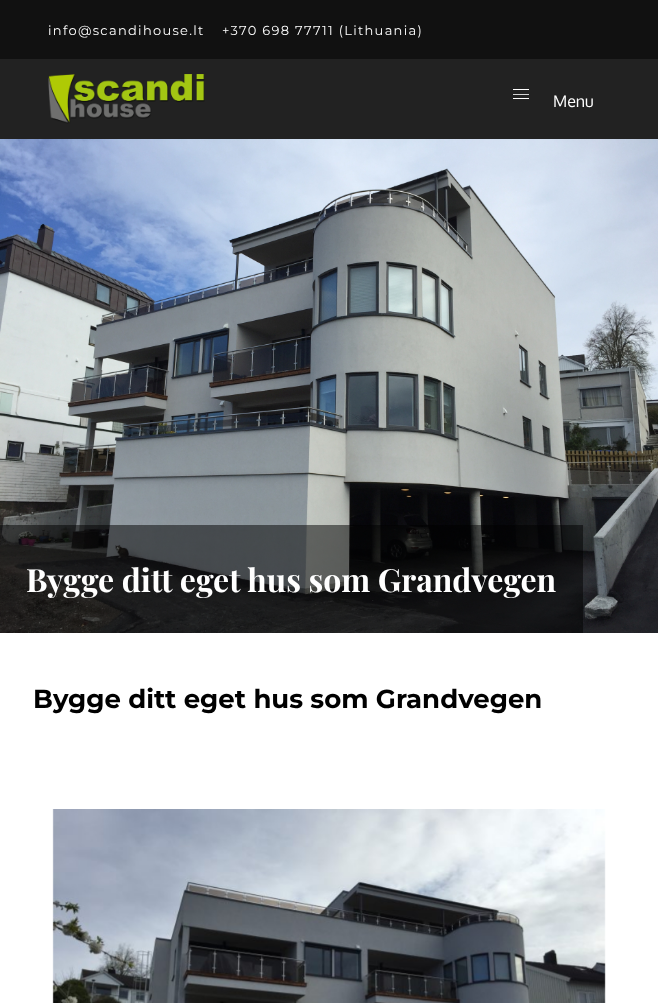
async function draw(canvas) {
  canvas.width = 658
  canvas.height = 1003
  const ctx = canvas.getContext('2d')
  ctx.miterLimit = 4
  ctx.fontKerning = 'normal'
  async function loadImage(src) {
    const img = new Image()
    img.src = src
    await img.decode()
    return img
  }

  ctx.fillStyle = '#fff'
  ctx.fillRect(0, 0, 658, 1003)
  ctx.fillStyle = '#111'
  ctx.fillRect(0, 0, 658, 59)
  ctx.letterSpacing = '1.3px'
  ctx.font = '13px Montserrat'
  ctx.fillStyle = '#fff'
  ctx.fillText('info@scandihouse.lt', 48, 35)
  ctx.fillText('+370 698 77711 (Lithuania)', 222, 35)
  ctx.fillStyle = '#222'
  ctx.fillRect(0, 59, 658, 80)
  ctx.drawImage(await loadImage('image0.png'), 48, 74, 157, 50)
  ctx.fillStyle = '#fff'
  ctx.fillRect(513, 89, 16, 1)
  ctx.fillStyle = '#d3d3d3'
  ctx.fillRect(513, 94, 16, 1)
  ctx.fillStyle = '#fff'
  ctx.fillRect(513, 98, 16, 1)
  ctx.letterSpacing = '0px'
  ctx.font = '16px Oxygen'
  ctx.fillText('Menu', 553, 107)
  ctx.drawImage(await loadImage('image1.png'), 0, 139, 658, 494)
  ctx.fillStyle = '#00000080'
  ctx.fillRect(0, 525, 583, 108)
  ctx.font = 'bold 32px Playfair Display'
  ctx.fillStyle = '#fff'
  ctx.fillText('Bygge ditt eget hus som Grandvegen', 26, 592)
  ctx.font = 'bold 26px Montserrat'
  ctx.fillStyle = '#000'
  ctx.fillText('Bygge ditt eget hus som Grandvegen', 33, 708)
  ctx.drawImage(await loadImage('image2.png'), 52, 809, 554, 194)
}

draw(document.querySelector('canvas'))
